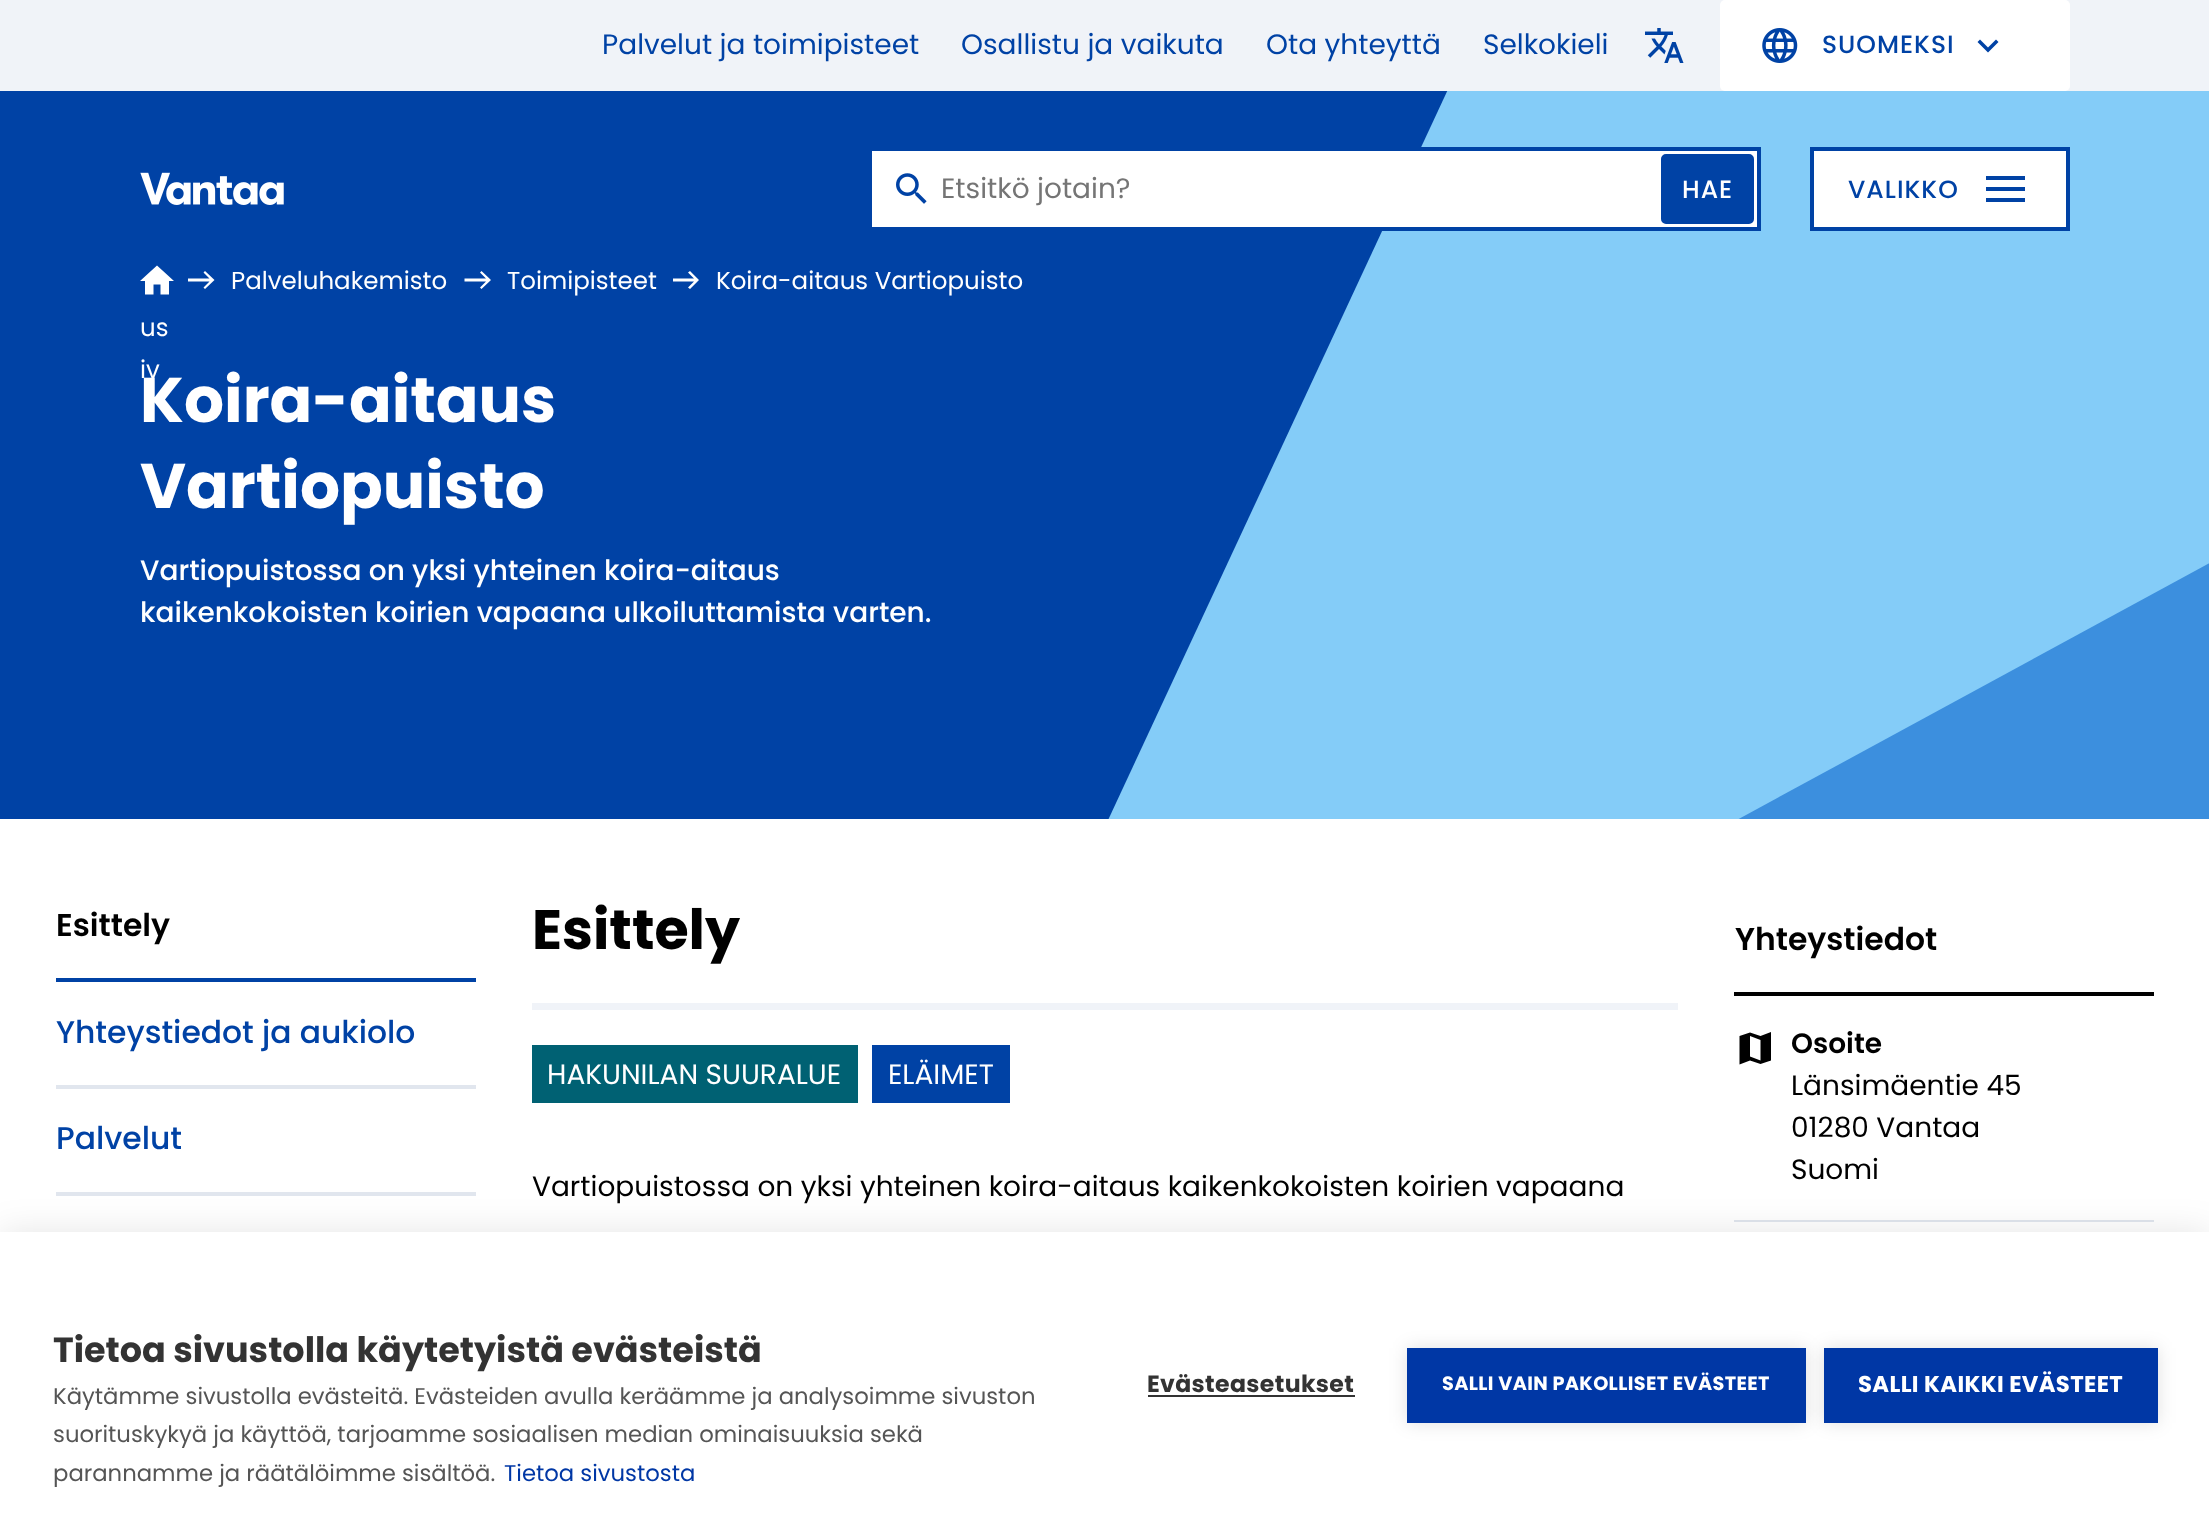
async function draw(canvas) {
  canvas.width = 2209
  canvas.height = 1535
  const ctx = canvas.getContext('2d')
  ctx.miterLimit = 4
  ctx.fontKerning = 'normal'
  async function loadImage(src) {
    const img = new Image()
    img.src = src
    await img.decode()
    return img
  }

  ctx.fillStyle = '#fff'
  ctx.fillRect(0, 0, 2209, 1535)
  ctx.fillStyle = '#f0f3f8'
  ctx.fillRect(0, 0, 2209, 91)
  ctx.font = '28px Poppins'
  ctx.fillStyle = '#0042a5'
  ctx.fillText('Palvelut ja toimipisteet', 602, 54)
  ctx.fillText('Osallistu ja vaikuta', 961, 54)
  ctx.fillText('Ota yhteyttä', 1266, 54)
  ctx.fillText('Selkokieli', 1483, 54)
  ctx.drawImage(await loadImage('image0.png'), 1645, 28, 39, 35)
  ctx.fillStyle = '#fff'
  ctx.beginPath()
  ctx.roundRect(1720, 0, 350, 91, 5)
  ctx.fill()
  ctx.drawImage(await loadImage('image1.png'), 1762, 28, 36, 35)
  ctx.letterSpacing = '1px'
  ctx.font = '500 25px Poppins'
  ctx.fillStyle = '#0042a5'
  ctx.fillText('SUOMEKSI', 1822, 53)
  ctx.beginPath()
  ctx.moveTo(1996, 39.5)
  ctx.lineTo(1988, 47.5)
  ctx.lineTo(1980, 39.5)
  ctx.lineTo(1977.5, 42)
  ctx.lineTo(1988, 52.5)
  ctx.lineTo(1998.5, 42)
  ctx.closePath()
  ctx.fill()
  ctx.fillRect(0, 91, 1108, 728)
  ctx.drawImage(await loadImage('image2.png'), 140, 172, 144, 33)
  ctx.drawImage(await loadImage('image4.png'), 1108, 91, 1101, 728)
  ctx.fillStyle = '#fff'
  ctx.beginPath()
  ctx.rect(870, 149, 889, 80)
  ctx.fill()
  ctx.strokeStyle = '#0042a5'
  ctx.lineWidth = 4
  ctx.stroke()
  ctx.drawImage(await loadImage('image3.png'), 896, 173, 31, 31)
  ctx.letterSpacing = '0px'
  ctx.font = '28px Poppins'
  ctx.fillStyle = '#757575'
  ctx.fillText('Etsitkö jotain?', 941, 198)
  ctx.fillStyle = '#0042a5'
  ctx.beginPath()
  ctx.roundRect(1663, 156, 89, 66, 3)
  ctx.fill()
  ctx.stroke()
  ctx.letterSpacing = '1px'
  ctx.font = '500 25px Poppins'
  ctx.fillStyle = '#fff'
  ctx.fillText('HAE', 1682, 198)
  ctx.beginPath()
  ctx.rect(1812, 149, 256, 80)
  ctx.fill()
  ctx.stroke()
  ctx.fillStyle = '#0042a5'
  ctx.fillText('VALIKKO', 1848, 198)
  ctx.beginPath()
  ctx.moveTo(1986, 202)
  ctx.lineTo(2025, 202)
  ctx.lineTo(2025, 198)
  ctx.lineTo(1986, 198)
  ctx.closePath()
  ctx.moveTo(1986, 191)
  ctx.lineTo(2025, 191)
  ctx.lineTo(2025, 187)
  ctx.lineTo(1986, 187)
  ctx.closePath()
  ctx.moveTo(1986, 176)
  ctx.lineTo(1986, 180)
  ctx.lineTo(2025, 180)
  ctx.lineTo(2025, 176)
  ctx.closePath()
  ctx.fill()
  ctx.fillStyle = '#fff'
  ctx.beginPath()
  ctx.moveTo(205, 271)
  ctx.lineTo(203.5, 272.5)
  ctx.lineTo(209.5, 278.5)
  ctx.lineTo(188, 278.5)
  ctx.lineTo(188, 281.5)
  ctx.lineTo(209.5, 281.5)
  ctx.lineTo(203.5, 287.5)
  ctx.lineTo(205, 289)
  ctx.lineTo(214.5, 280)
  ctx.closePath()
  ctx.fill()
  ctx.letterSpacing = '0px'
  ctx.font = '24.5px Poppins'
  ctx.fillText('Palveluhakemisto', 231, 289)
  ctx.beginPath()
  ctx.moveTo(481.5, 271)
  ctx.lineTo(480, 272.5)
  ctx.lineTo(486, 278.5)
  ctx.lineTo(464.5, 278.5)
  ctx.lineTo(464.5, 281.5)
  ctx.lineTo(486, 281.5)
  ctx.lineTo(480, 287.5)
  ctx.lineTo(481.5, 289)
  ctx.lineTo(491, 280)
  ctx.closePath()
  ctx.fill()
  ctx.fillText('Toimipisteet', 507, 289)
  ctx.beginPath()
  ctx.moveTo(690, 271)
  ctx.lineTo(688, 272.5)
  ctx.lineTo(694, 278.5)
  ctx.lineTo(673, 278.5)
  ctx.lineTo(673, 281.5)
  ctx.lineTo(694, 281.5)
  ctx.lineTo(688, 287.5)
  ctx.lineTo(690, 289)
  ctx.lineTo(699, 280)
  ctx.closePath()
  ctx.fill()
  ctx.fillText('Koira-aitaus Vartiopuisto', 716, 289)
  ctx.beginPath()
  ctx.moveTo(153.5, 294.5)
  ctx.lineTo(153.5, 284.5)
  ctx.lineTo(160.5, 284.5)
  ctx.lineTo(160.5, 294.5)
  ctx.lineTo(169, 294.5)
  ctx.lineTo(169, 281)
  ctx.lineTo(174, 281)
  ctx.lineTo(157, 265.5)
  ctx.lineTo(140, 281)
  ctx.lineTo(145, 281)
  ctx.lineTo(145, 294.5)
  ctx.closePath()
  ctx.fill()
  ctx.fillText('us', 140, 336)
  ctx.fillText('iv', 140, 378)
  ctx.font = 'bold 63px Poppins'
  ctx.fillText('Koira-aitaus', 140, 422)
  ctx.fillText('Vartiopuisto', 140, 508)
  ctx.font = '500 28px Poppins'
  ctx.fillText('Vartiopuistossa on yksi yhteinen koira-aitaus', 140, 580)
  ctx.fillText('kaikenkokoisten koirien vapaana ulkoiluttamista varten.', 140, 622)
  ctx.fillStyle = '#0042a5'
  ctx.fillRect(56, 978, 420, 4)
  ctx.font = '600 31.4px Poppins'
  ctx.fillStyle = '#000'
  ctx.fillText('Esittely', 56, 936)
  ctx.fillStyle = '#e1e6ee'
  ctx.fillRect(56, 1085, 420, 4)
  ctx.font = '500 31.4px Poppins'
  ctx.fillStyle = '#0042a5'
  ctx.fillText('Yhteystiedot ja aukiolo', 56, 1043)
  ctx.fillStyle = '#e1e6ee'
  ctx.fillRect(56, 1192, 420, 4)
  ctx.fillStyle = '#0042a5'
  ctx.fillText('Palvelut', 56, 1149)
  ctx.font = 'bold 55.5px Poppins'
  ctx.fillStyle = '#000'
  ctx.fillText('Esittely', 532, 949)
  ctx.fillStyle = '#f0f3f8'
  ctx.fillRect(532, 1003, 1146, 7)
  ctx.fillStyle = '#006173'
  ctx.fillRect(532, 1045, 326, 58)
  ctx.font = '28px Poppins'
  ctx.fillStyle = '#fff'
  ctx.fillText('HAKUNILAN SUURALUE', 547, 1084)
  ctx.fillStyle = '#0042a5'
  ctx.fillRect(872, 1045, 138, 58)
  ctx.fillStyle = '#fff'
  ctx.fillText('ELÄIMET', 888, 1084)
  ctx.fillStyle = '#000'
  ctx.fillText('Vartiopuistossa on yksi yhteinen koira-aitaus kaikenkokoisten koirien vapaana', 532, 1196)
  ctx.font = '600 31.4px Poppins'
  ctx.fillText('Yhteystiedot', 1735, 950)
  ctx.fillRect(1734, 992, 420, 4)
  ctx.fillStyle = '#e1e6ee'
  ctx.fillRect(1734, 1220, 420, 2)
  ctx.fillStyle = '#000'
  ctx.beginPath()
  ctx.moveTo(1760.5, 1036)
  ctx.lineTo(1750, 1032.5)
  ctx.lineTo(1739.5, 1036)
  ctx.lineTo(1739.5, 1064.5)
  ctx.lineTo(1750, 1060.5)
  ctx.lineTo(1760.5, 1064)
  ctx.lineTo(1771, 1060.5)
  ctx.lineTo(1771, 1032)
  ctx.closePath()
  ctx.moveTo(1760.5, 1060.5)
  ctx.lineTo(1750, 1056.5)
  ctx.lineTo(1750, 1036)
  ctx.lineTo(1760.5, 1040)
  ctx.closePath()
  ctx.fill()
  ctx.font = '600 28px Poppins'
  ctx.fillText('Osoite', 1791, 1053)
  ctx.font = '28px Poppins'
  ctx.fillText('Länsimäentie 45', 1791, 1095)
  ctx.fillText('01280 Vantaa', 1791, 1137)
  ctx.fillText('Suomi', 1791, 1179)
  ctx.fillStyle = '#0000001a'
  ctx.filter = 'blur(17.5px)'
  ctx.beginPath()
  ctx.rect(0, 1232, 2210, 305)
  ctx.fill()
  ctx.filter = 'none'
  ctx.fillStyle = '#fff'
  ctx.fillRect(0, 1232, 2209, 303)
  ctx.font = 'bold 35px Poppins'
  ctx.fillStyle = '#333'
  ctx.fillText('Tietoa sivustolla käytetyistä evästeistä', 53, 1362)
  ctx.font = '22.75px Poppins'
  ctx.fillStyle = '#555'
  ctx.fillText('Käytämme sivustolla evästeitä. Evästeiden avulla keräämme ja analysoimme sivuston', 53, 1404)
  ctx.fillText('suorituskykyä ja käyttöä, tarjoamme sosiaalisen median ominaisuuksia sekä', 53, 1442)
  ctx.fillText('parannamme ja räätälöimme sisältöä.', 53, 1481)
  ctx.fillStyle = '#0037a5'
  ctx.fillText('Tietoa sivustosta', 504, 1481)
  ctx.letterSpacing = '0.35px'
  ctx.font = 'bold 23.6px Poppins'
  ctx.fillStyle = '#333'
  ctx.fillText('Evästeasetukset', 1147, 1392)
  ctx.fillRect(1148, 1395, 207, 2)
  ctx.fillStyle = '#0000001f'
  ctx.filter = 'blur(9px)'
  ctx.beginPath()
  ctx.rect(1407, 1348, 399, 75)
  ctx.fill()
  ctx.filter = 'none'
  ctx.fillStyle = '#0037a5'
  ctx.fillRect(1407, 1348, 399, 75)
  ctx.font = 'bold 19.25px Poppins'
  ctx.fillStyle = '#fff'
  ctx.fillText('SALLI VAIN PAKOLLISET EVÄSTEET', 1442, 1390)
  ctx.fillStyle = '#0000001f'
  ctx.filter = 'blur(9px)'
  ctx.beginPath()
  ctx.rect(1824, 1348, 334, 75)
  ctx.fill()
  ctx.filter = 'none'
  ctx.fillStyle = '#0037a5'
  ctx.fillRect(1824, 1348, 334, 75)
  ctx.font = 'bold 22.75px Poppins'
  ctx.fillStyle = '#fff'
  ctx.fillText('SALLI KAIKKI EVÄSTEET', 1858, 1392)
}

draw(document.querySelector('canvas'))
